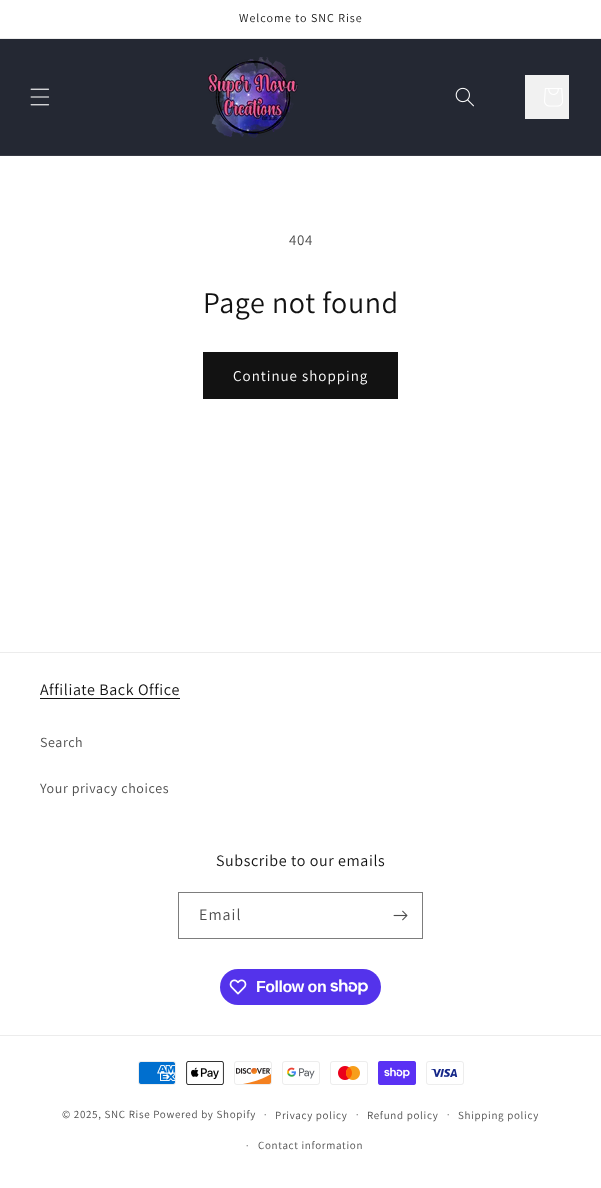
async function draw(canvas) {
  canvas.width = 601
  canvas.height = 1188
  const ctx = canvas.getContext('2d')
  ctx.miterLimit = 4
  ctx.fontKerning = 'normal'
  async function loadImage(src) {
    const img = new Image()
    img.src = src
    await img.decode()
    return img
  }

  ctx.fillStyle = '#fff'
  ctx.fillRect(0, 0, 601, 1188)
  ctx.fillStyle = '#ececec'
  ctx.fillRect(0, 38, 601, 1)
  ctx.letterSpacing = '1px'
  ctx.font = '12px Assistant'
  ctx.fillStyle = '#121212'
  ctx.fillText('Welcome to SNC Rise', 239, 22)
  ctx.fillStyle = '#242833'
  ctx.fillRect(0, 39, 601, 116)
  ctx.fillStyle = '#363943'
  ctx.fillRect(0, 155, 601, 1)
  ctx.drawImage(await loadImage('image0.png'), 30, 88, 20, 18)
  ctx.drawImage(await loadImage('image1.png'), 208, 57, 90, 81)
  ctx.drawImage(await loadImage('image2.png'), 455, 87, 19, 20)
  ctx.fillStyle = '#f1f1f1'
  ctx.fillRect(525, 75, 44, 44)
  ctx.drawImage(await loadImage('image3.png'), 544, 88, 19, 19)
  ctx.letterSpacing = '0.6px'
  ctx.font = '15px Assistant'
  ctx.fillStyle = '#4d4d4d'
  ctx.fillText('404', 289, 245)
  ctx.font = '30px Assistant'
  ctx.fillStyle = '#121212'
  ctx.fillText('Page not found', 203, 313)
  ctx.fillRect(203, 352, 195, 47)
  ctx.letterSpacing = '1px'
  ctx.font = '15px Assistant'
  ctx.fillStyle = '#fff'
  ctx.fillText('Continue shopping', 233, 381)
  ctx.fillStyle = '#ececec'
  ctx.fillRect(0, 652, 601, 1)
  ctx.letterSpacing = '0.6px'
  ctx.font = '16px Assistant'
  ctx.fillStyle = '#121212'
  ctx.fillText('Affiliate Back Office', 40, 695)
  ctx.fillRect(40, 698, 140, 1)
  ctx.font = '14px Assistant'
  ctx.fillStyle = '#4d4d4d'
  ctx.fillText('Search', 40, 747)
  ctx.fillText('Your privacy choices', 40, 793)
  ctx.font = '16px Assistant'
  ctx.fillStyle = '#121212'
  ctx.fillText('Subscribe to our emails', 216, 866)
  ctx.strokeStyle = '#7d7d7d'
  ctx.strokeRect(178.5, 892.5, 244, 46)
  ctx.letterSpacing = '1px'
  ctx.fillStyle = '#4d4d4d'
  ctx.fillText('Email', 199, 920)
  ctx.drawImage(await loadImage('image4.png'), 393, 910, 15, 11)
  ctx.fillStyle = '#5433eb'
  ctx.beginPath()
  ctx.roundRect(220, 969, 161, 36, 18)
  ctx.fill()
  ctx.drawImage(await loadImage('image5.png'), 229, 979, 18, 16)
  ctx.letterSpacing = '-0.5px'
  ctx.font = 'bold 16px Liberation Sans'
  ctx.fillStyle = '#fff'
  ctx.fillText('Follow on', 256, 992)
  ctx.drawImage(await loadImage('image6.png'), 330, 979, 38, 16)
  ctx.fillStyle = '#ececec'
  ctx.fillRect(0, 1035, 601, 1)
  ctx.drawImage(await loadImage('image7.png'), 138, 1061, 38, 24)
  ctx.drawImage(await loadImage('image8.png'), 186, 1061, 38, 24)
  ctx.drawImage(await loadImage('image9.png'), 234, 1061, 38, 24)
  ctx.drawImage(await loadImage('image10.png'), 282, 1061, 38, 24)
  ctx.drawImage(await loadImage('image11.png'), 330, 1061, 38, 24)
  ctx.drawImage(await loadImage('image12.png'), 378, 1061, 38, 24)
  ctx.drawImage(await loadImage('image13.png'), 426, 1061, 38, 24)
  ctx.letterSpacing = '0.7px'
  ctx.font = '11px Assistant'
  ctx.fillStyle = '#4d4d4d'
  ctx.fillText('© 2025, SNC Rise Powered by Shopify', 62, 1118)
  ctx.font = '10px Assistant'
  ctx.fillText('·', 264, 1118)
  ctx.font = '11px Assistant'
  ctx.fillText('Privacy policy', 275, 1119)
  ctx.font = '10px Assistant'
  ctx.fillText('·', 356, 1118)
  ctx.font = '11px Assistant'
  ctx.fillText('Refund policy', 367, 1119)
  ctx.font = '10px Assistant'
  ctx.fillText('·', 447, 1118)
  ctx.font = '11px Assistant'
  ctx.fillText('Shipping policy', 458, 1119)
  ctx.font = '10px Assistant'
  ctx.fillText('·', 246, 1149)
  ctx.font = '11px Assistant'
  ctx.fillText('Contact information', 258, 1149)
}

draw(document.querySelector('canvas'))
